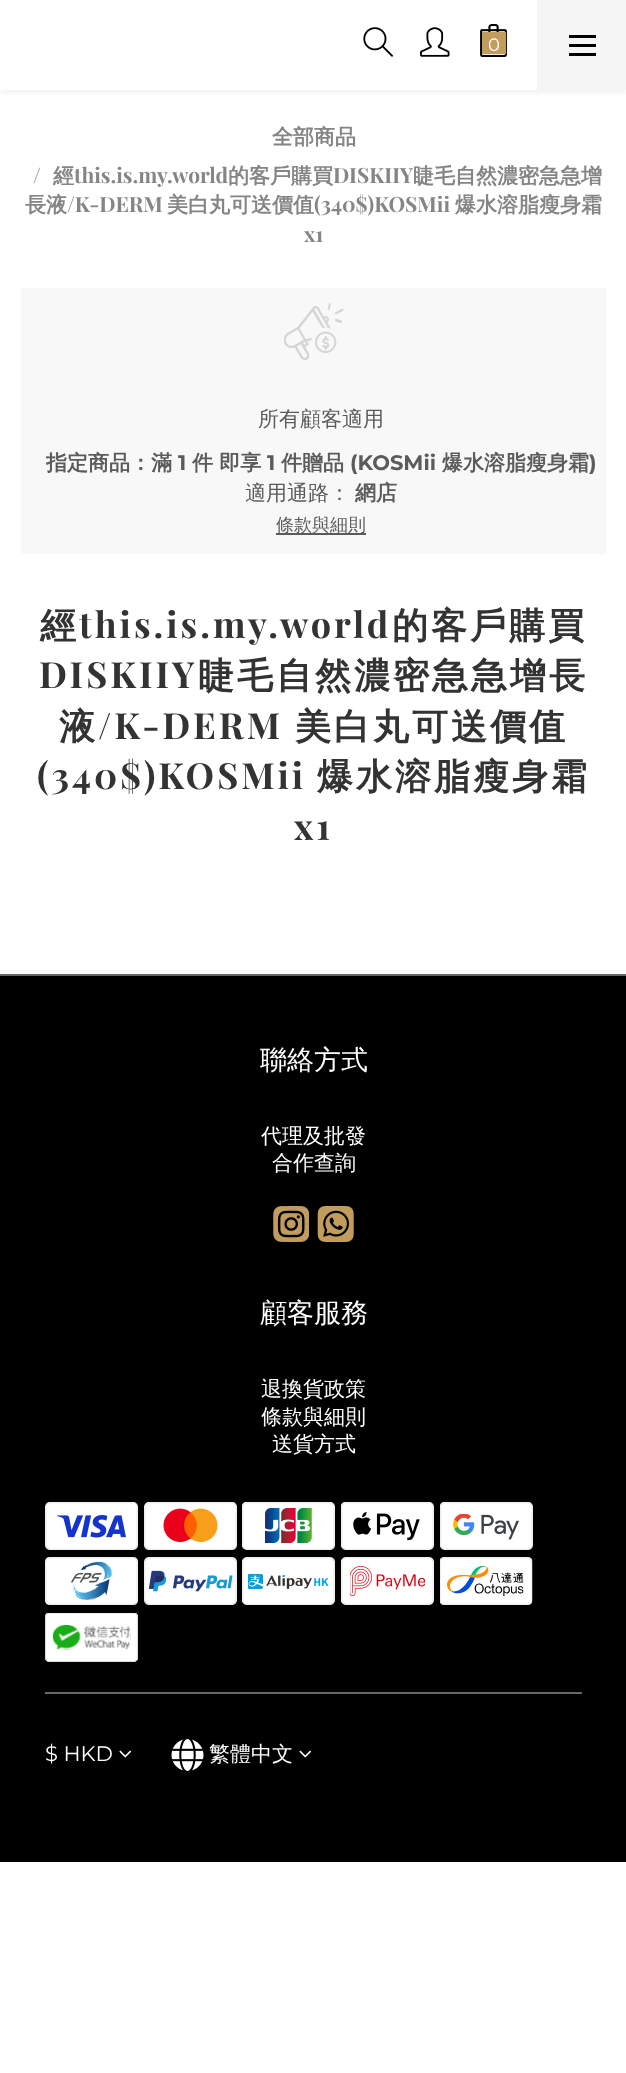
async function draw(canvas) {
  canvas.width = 626
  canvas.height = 2073
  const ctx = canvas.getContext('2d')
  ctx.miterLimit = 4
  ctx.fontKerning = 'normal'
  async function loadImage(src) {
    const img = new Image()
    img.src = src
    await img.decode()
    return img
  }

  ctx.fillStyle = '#fff'
  ctx.fillRect(0, 0, 626, 2073)
  ctx.save()
  ctx.beginPath()
  ctx.rect(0, 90, 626, 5)
  ctx.clip()
  ctx.fillStyle = '#0000000f'
  ctx.filter = 'blur(4.5px)'
  ctx.beginPath()
  ctx.rect(0, 3, 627, 90)
  ctx.fill()
  ctx.filter = 'none'
  ctx.restore()
  ctx.drawImage(await loadImage('image0.png'), 363, 27, 30, 30)
  ctx.drawImage(await loadImage('image1.png'), 420, 27, 30, 30)
  ctx.drawImage(await loadImage('image2.png'), 480, 24, 27, 33)
  ctx.fillStyle = '#c19c5c'
  ctx.fillRect(482, 32, 24, 22)
  ctx.font = '18px Montserrat'
  ctx.fillStyle = '#fff'
  ctx.fillText('0', 488, 51)
  ctx.fillStyle = '#f5f5f5'
  ctx.fillRect(537, 0, 89, 90)
  ctx.fillStyle = '#000'
  ctx.fillRect(569, 44, 27, 3)
  ctx.fillRect(569, 35, 27, 3)
  ctx.fillRect(569, 53, 27, 3)
  ctx.font = 'bold 21px WenQuanYi Zen Hei'
  ctx.fillStyle = '#858585'
  ctx.fillText('全部商品', 272, 144)
  ctx.font = 'bold 21px Playfair Display'
  ctx.fillText('/', 33, 183)
  ctx.font = 'bold 21px WenQuanYi Zen Hei'
  ctx.fillText('經', 53, 183)
  ctx.font = 'bold 21px Playfair Display'
  ctx.fillText('this.is.my.world', 74, 183)
  ctx.font = 'bold 21px WenQuanYi Zen Hei'
  ctx.fillText('的客戶購買', 228, 183)
  ctx.font = 'bold 21px Playfair Display'
  ctx.fillText('DISKIIY', 333, 183)
  ctx.font = 'bold 21px WenQuanYi Zen Hei'
  ctx.fillText('睫毛自然濃密急急增', 413, 183)
  ctx.fillText('長液', 25, 212)
  ctx.font = 'bold 21px Playfair Display'
  ctx.fillText('/K-DERM', 67, 212)
  ctx.font = 'bold 21px WenQuanYi Zen Hei'
  ctx.fillText('美白丸可送價值', 167, 212)
  ctx.font = 'bold 21px Playfair Display'
  ctx.fillText('(340$)KOSMii', 314, 212)
  ctx.font = 'bold 21px WenQuanYi Zen Hei'
  ctx.fillText('爆水溶脂瘦身霜', 455, 212)
  ctx.font = 'bold 21px Playfair Display'
  ctx.fillText('x1', 304, 242)
  ctx.fillStyle = '#f8f8f8'
  ctx.fillRect(21, 288, 585, 266)
  ctx.drawImage(await loadImage('image3.png'), 284, 303, 60, 57)
  ctx.font = '500 21px WenQuanYi Zen Hei'
  ctx.fillStyle = '#5b5b5b'
  ctx.fillText('所有顧客適用', 258, 426)
  ctx.font = 'bold 21px WenQuanYi Zen Hei'
  ctx.fillText('指定商品：滿', 46, 470)
  ctx.font = 'bold 21px Montserrat'
  ctx.fillText('1', 178, 470)
  ctx.font = 'bold 21px WenQuanYi Zen Hei'
  ctx.fillText('件 即享', 192, 470)
  ctx.font = 'bold 21px Montserrat'
  ctx.fillText('1', 267, 470)
  ctx.font = 'bold 21px WenQuanYi Zen Hei'
  ctx.fillText('件贈品', 281, 470)
  ctx.font = 'bold 21px Montserrat'
  ctx.fillText('(KOSMii', 350, 470)
  ctx.font = 'bold 21px WenQuanYi Zen Hei'
  ctx.fillText('爆水溶脂瘦身霜', 442, 470)
  ctx.font = 'bold 21px Montserrat'
  ctx.fillText(')', 589, 470)
  ctx.font = '500 21px WenQuanYi Zen Hei'
  ctx.fillText('適用通路：', 245, 500)
  ctx.font = 'bold 21px WenQuanYi Zen Hei'
  ctx.fillText('網店', 355, 500)
  ctx.fillRect(276, 533, 90, 2)
  ctx.font = '500 18px WenQuanYi Zen Hei'
  ctx.fillText('條款與細則', 276, 531)
  ctx.letterSpacing = '3px'
  ctx.font = 'bold 36px WenQuanYi Zen Hei'
  ctx.fillStyle = '#333'
  ctx.fillText('經', 40, 638)
  ctx.font = 'bold 36px Playfair Display'
  ctx.fillText('this.is.my.world', 79, 638)
  ctx.font = 'bold 36px WenQuanYi Zen Hei'
  ctx.fillText('的客戶購買', 392, 638)
  ctx.font = 'bold 36px Playfair Display'
  ctx.fillText('DISKIIY', 39, 688)
  ctx.font = 'bold 36px WenQuanYi Zen Hei'
  ctx.fillText('睫毛自然濃密急急增長', 198, 688)
  ctx.fillText('液', 59, 739)
  ctx.font = 'bold 36px Playfair Display'
  ctx.fillText('/K-DERM', 98, 739)
  ctx.font = 'bold 36px WenQuanYi Zen Hei'
  ctx.fillText('美白丸可送價值', 295, 739)
  ctx.font = 'bold 36px Playfair Display'
  ctx.fillText('(340$)KOSMii', 37, 789)
  ctx.font = 'bold 36px WenQuanYi Zen Hei'
  ctx.fillText('爆水溶脂瘦身霜', 317, 789)
  ctx.font = 'bold 36px Playfair Display'
  ctx.fillText('x1', 294, 840)
  ctx.fillStyle = '#000'
  ctx.fillRect(0, 976, 626, 886)
  ctx.fillStyle = '#666'
  ctx.fillRect(0, 974, 626, 2)
  ctx.letterSpacing = '0px'
  ctx.font = '500 27px WenQuanYi Zen Hei'
  ctx.fillStyle = '#fff'
  ctx.fillText('聯絡方式', 260, 1069)
  ctx.font = '500 21px WenQuanYi Zen Hei'
  ctx.fillText('代理及批發', 261, 1143)
  ctx.fillText('合作查詢', 272, 1170)
  ctx.drawImage(await loadImage('image4.png'), 273, 1206, 36, 36)
  ctx.drawImage(await loadImage('image5.png'), 317, 1206, 37, 36)
  ctx.font = '500 27px WenQuanYi Zen Hei'
  ctx.fillText('顧客服務', 260, 1322)
  ctx.font = '500 21px WenQuanYi Zen Hei'
  ctx.fillText('退換貨政策', 261, 1396)
  ctx.fillText('條款與細則', 261, 1424)
  ctx.fillText('送貨方式', 272, 1451)
  ctx.drawImage(await loadImage('image6.png'), 45, 1502, 93, 48)
  ctx.drawImage(await loadImage('image7.png'), 144, 1502, 93, 48)
  ctx.drawImage(await loadImage('image8.png'), 242, 1502, 93, 48)
  ctx.drawImage(await loadImage('image9.png'), 341, 1502, 93, 48)
  ctx.drawImage(await loadImage('image10.png'), 440, 1502, 93, 48)
  ctx.drawImage(await loadImage('image11.png'), 45, 1557, 93, 48)
  ctx.drawImage(await loadImage('image12.png'), 144, 1557, 93, 48)
  ctx.drawImage(await loadImage('image13.png'), 242, 1557, 93, 48)
  ctx.drawImage(await loadImage('image14.png'), 341, 1557, 93, 48)
  ctx.drawImage(await loadImage('image15.png'), 440, 1557, 93, 48)
  ctx.drawImage(await loadImage('image16.png'), 45, 1613, 93, 49)
  ctx.fillStyle = '#666'
  ctx.fillRect(45, 1692, 537, 2)
  ctx.font = '21px Montserrat'
  ctx.fillStyle = '#fff'
  ctx.fillText('$ HKD', 45, 1761)
  ctx.drawImage(await loadImage('image17.png'), 119, 1750, 13, 8)
  ctx.drawImage(await loadImage('image18.png'), 171, 1739, 33, 32)
  ctx.font = '500 21px WenQuanYi Zen Hei'
  ctx.fillText('繁體中文', 209, 1761)
  ctx.drawImage(await loadImage('image17.png'), 299, 1750, 13, 8)
}

draw(document.querySelector('canvas'))
